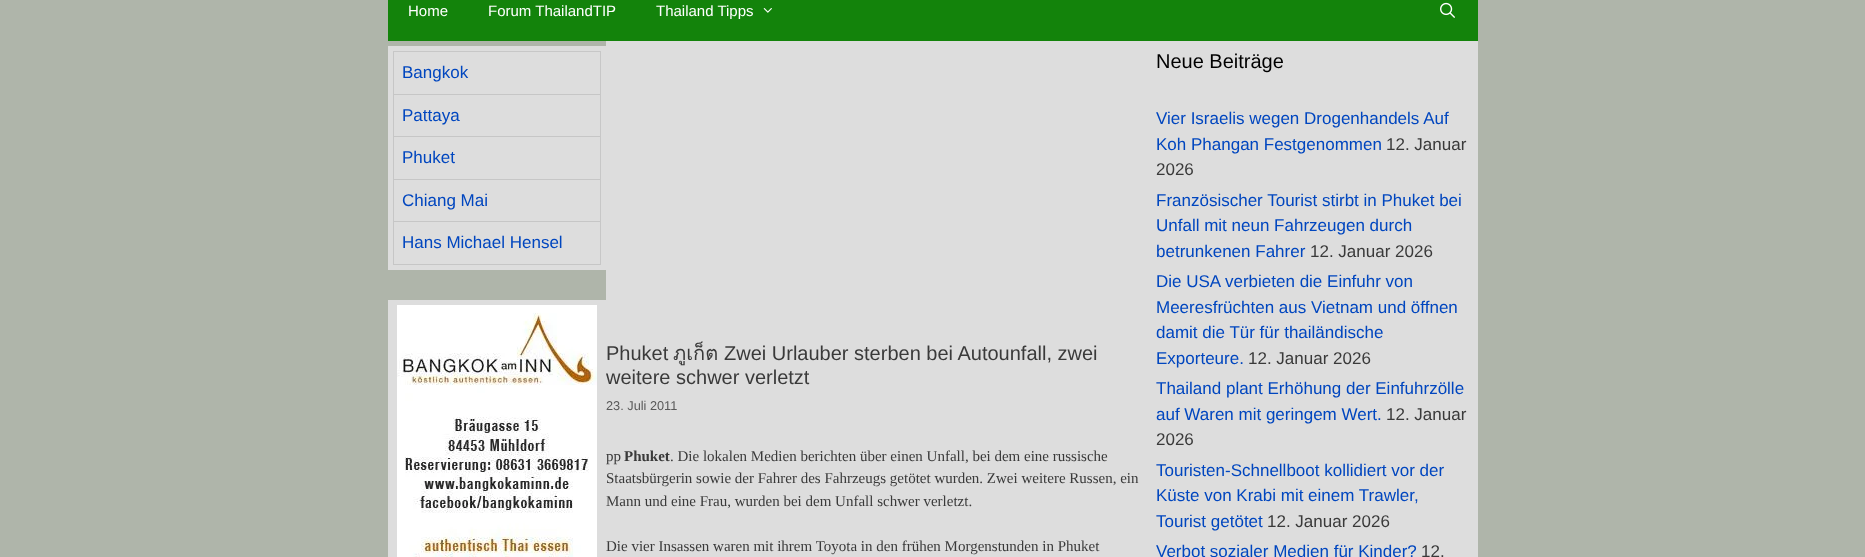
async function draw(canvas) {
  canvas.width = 1865
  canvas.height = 557
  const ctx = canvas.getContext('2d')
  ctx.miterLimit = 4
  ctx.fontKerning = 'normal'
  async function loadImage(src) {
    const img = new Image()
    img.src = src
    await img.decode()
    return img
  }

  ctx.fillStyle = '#afb5aa'
  ctx.fillRect(0, 0, 1865, 557)
  ctx.fillStyle = '#13830b'
  ctx.fillRect(388, 0, 1090, 41)
  ctx.font = '15px Liberation Sans'
  ctx.fillStyle = '#fff'
  ctx.fillText('Home', 408, 16)
  ctx.fillText('Forum ThailandTIP', 488, 16)
  ctx.fillText('Thailand Tipps', 656, 16)
  ctx.drawImage(await loadImage('image0.png'), 763, 8, 9, 5)
  ctx.drawImage(await loadImage('image1.png'), 1440, 2, 15, 16)
  ctx.fillStyle = '#ddd'
  ctx.fillRect(388, 46, 218, 224)
  ctx.fillStyle = '#c7c7c7'
  ctx.beginPath()
  ctx.moveTo(393, 51)
  ctx.lineTo(601, 51)
  ctx.lineTo(601, 52)
  ctx.lineTo(394, 52)
  ctx.closePath()
  ctx.fill()
  ctx.fillStyle = '#0000001a'
  ctx.beginPath()
  ctx.moveTo(393, 265)
  ctx.lineTo(393, 51)
  ctx.lineTo(394, 52)
  ctx.lineTo(394, 265)
  ctx.closePath()
  ctx.fill()
  ctx.fillStyle = '#c7c7c7'
  ctx.beginPath()
  ctx.moveTo(601, 52)
  ctx.lineTo(601, 95)
  ctx.lineTo(600, 94)
  ctx.lineTo(600, 52)
  ctx.closePath()
  ctx.fill()
  ctx.fillStyle = '#0000001a'
  ctx.beginPath()
  ctx.moveTo(601, 95)
  ctx.lineTo(394, 95)
  ctx.lineTo(394, 94)
  ctx.lineTo(600, 94)
  ctx.closePath()
  ctx.fill()
  ctx.font = '17px Liberation Sans'
  ctx.fillStyle = '#0046bf'
  ctx.fillText('Bangkok', 402, 78)
  ctx.fillStyle = '#c7c7c7'
  ctx.beginPath()
  ctx.moveTo(601, 95)
  ctx.lineTo(601, 137)
  ctx.lineTo(600, 136)
  ctx.lineTo(600, 95)
  ctx.closePath()
  ctx.fill()
  ctx.fillStyle = '#0000001a'
  ctx.beginPath()
  ctx.moveTo(601, 137)
  ctx.lineTo(394, 137)
  ctx.lineTo(394, 136)
  ctx.lineTo(600, 136)
  ctx.closePath()
  ctx.fill()
  ctx.fillStyle = '#0046bf'
  ctx.fillText('Pattaya', 402, 121)
  ctx.fillStyle = '#c7c7c7'
  ctx.beginPath()
  ctx.moveTo(601, 137)
  ctx.lineTo(601, 180)
  ctx.lineTo(600, 179)
  ctx.lineTo(600, 137)
  ctx.closePath()
  ctx.fill()
  ctx.fillStyle = '#0000001a'
  ctx.beginPath()
  ctx.moveTo(601, 180)
  ctx.lineTo(394, 180)
  ctx.lineTo(394, 179)
  ctx.lineTo(600, 179)
  ctx.closePath()
  ctx.fill()
  ctx.fillStyle = '#0046bf'
  ctx.fillText('Phuket', 402, 163)
  ctx.fillStyle = '#c7c7c7'
  ctx.beginPath()
  ctx.moveTo(601, 180)
  ctx.lineTo(601, 222)
  ctx.lineTo(600, 221)
  ctx.lineTo(600, 180)
  ctx.closePath()
  ctx.fill()
  ctx.fillStyle = '#0000001a'
  ctx.beginPath()
  ctx.moveTo(601, 222)
  ctx.lineTo(394, 222)
  ctx.lineTo(394, 221)
  ctx.lineTo(600, 221)
  ctx.closePath()
  ctx.fill()
  ctx.fillStyle = '#0046bf'
  ctx.fillText('Chiang Mai', 402, 206)
  ctx.fillStyle = '#c7c7c7'
  ctx.beginPath()
  ctx.moveTo(601, 222)
  ctx.lineTo(601, 265)
  ctx.lineTo(600, 264)
  ctx.lineTo(600, 222)
  ctx.closePath()
  ctx.fill()
  ctx.fillStyle = '#0000001a'
  ctx.beginPath()
  ctx.moveTo(601, 265)
  ctx.lineTo(394, 265)
  ctx.lineTo(394, 264)
  ctx.lineTo(600, 264)
  ctx.closePath()
  ctx.fill()
  ctx.fillStyle = '#0046bf'
  ctx.fillText('Hans Michael Hensel', 402, 248)
  ctx.fillStyle = '#ddd'
  ctx.fillRect(606, 41, 872, 516)
  ctx.font = '20px Liberation Sans'
  ctx.fillStyle = '#3a3a3a'
  ctx.fillText('weitere schwer verletzt', 606, 384)
  ctx.font = '15px Liberation Serif'
  ctx.fillText('pp', 606, 461)
  ctx.fillText('Mann und eine Frau, wurden bei dem Unfall schwer verletzt.', 606, 506)
  ctx.fillText('Die vier Insassen waren mit ihrem Toyota in den frühen Morgenstunden in Phuket', 606, 551)
  ctx.fillStyle = '#ddd'
  ctx.fillRect(388, 300, 218, 257)
  ctx.drawImage(await loadImage('image2.png'), 397, 305, 200, 252)
  ctx.font = '20px Liberation Sans'
  ctx.fillStyle = '#000'
  ctx.fillText('Neue Beiträge', 1156, 68)
  ctx.font = '17px Liberation Sans'
  ctx.fillStyle = '#0046bf'
  ctx.fillText('Vier Israelis wegen Drogenhandels Auf', 1156, 124)
  ctx.fillText('Koh Phangan Festgenommen', 1156, 150)
  ctx.fillStyle = '#3a3a3a'
  ctx.fillText('12. Januar', 1386, 150)
  ctx.fillText('2026', 1156, 175)
  ctx.fillStyle = '#0046bf'
  ctx.fillText('Französischer Tourist stirbt in Phuket bei', 1156, 206)
  ctx.fillText('Unfall mit neun Fahrzeugen durch', 1156, 231)
  ctx.fillText('betrunkenen Fahrer', 1156, 257)
  ctx.fillStyle = '#3a3a3a'
  ctx.fillText('12. Januar 2026', 1310, 257)
  ctx.fillStyle = '#0046bf'
  ctx.fillText('Die USA verbieten die Einfuhr von', 1156, 287)
  ctx.fillText('Meeresfrüchten aus Vietnam und öffnen', 1156, 313)
  ctx.fillText('damit die Tür für thailändische', 1156, 338)
  ctx.fillText('Exporteure.', 1156, 364)
  ctx.fillStyle = '#3a3a3a'
  ctx.fillText('12. Januar 2026', 1248, 364)
  ctx.fillStyle = '#0046bf'
  ctx.fillText('Thailand plant Erhöhung der Einfuhrzölle', 1156, 394)
  ctx.fillText('auf Waren mit geringem Wert.', 1156, 420)
  ctx.fillStyle = '#3a3a3a'
  ctx.fillText('12. Januar', 1386, 420)
  ctx.fillText('2026', 1156, 445)
  ctx.fillStyle = '#0046bf'
  ctx.fillText('Touristen-Schnellboot kollidiert vor der', 1156, 476)
  ctx.fillText('Küste von Krabi mit einem Trawler,', 1156, 501)
  ctx.fillText('Tourist getötet', 1156, 527)
  ctx.fillStyle = '#3a3a3a'
  ctx.fillText('12. Januar 2026', 1267, 527)
  ctx.fillStyle = '#0046bf'
  ctx.fillText('Verbot sozialer Medien für Kinder?', 1156, 557)
  ctx.fillStyle = '#3a3a3a'
  ctx.fillText('12.', 1421, 557)
  ctx.font = '20px Liberation Sans'
  ctx.fillText('Phuket', 606, 360)
  ctx.font = '20px Loma'
  ctx.fillText('ภูเก็ต', 673, 360)
  ctx.font = '20px Liberation Sans'
  ctx.fillText('Zwei Urlauber sterben bei Autounfall, zwei', 724, 360)
  ctx.font = '12.75px Liberation Sans'
  ctx.fillStyle = '#595959'
  ctx.fillText('23. Juli 2011', 606, 410)
  ctx.font = 'bold 15px Liberation Serif'
  ctx.fillStyle = '#3a3a3a'
  ctx.fillText('Phuket', 624, 461)
  ctx.font = '15px Liberation Serif'
  ctx.fillText('. Die lokalen Medien berichten über einen Unfall, bei dem eine russische', 670, 461)
  ctx.fillText('Staatsbürgerin sowie der Fahrer des Fahrzeugs getötet wurden. Zwei weitere Russen, ein', 606, 483)
}

draw(document.querySelector('canvas'))
